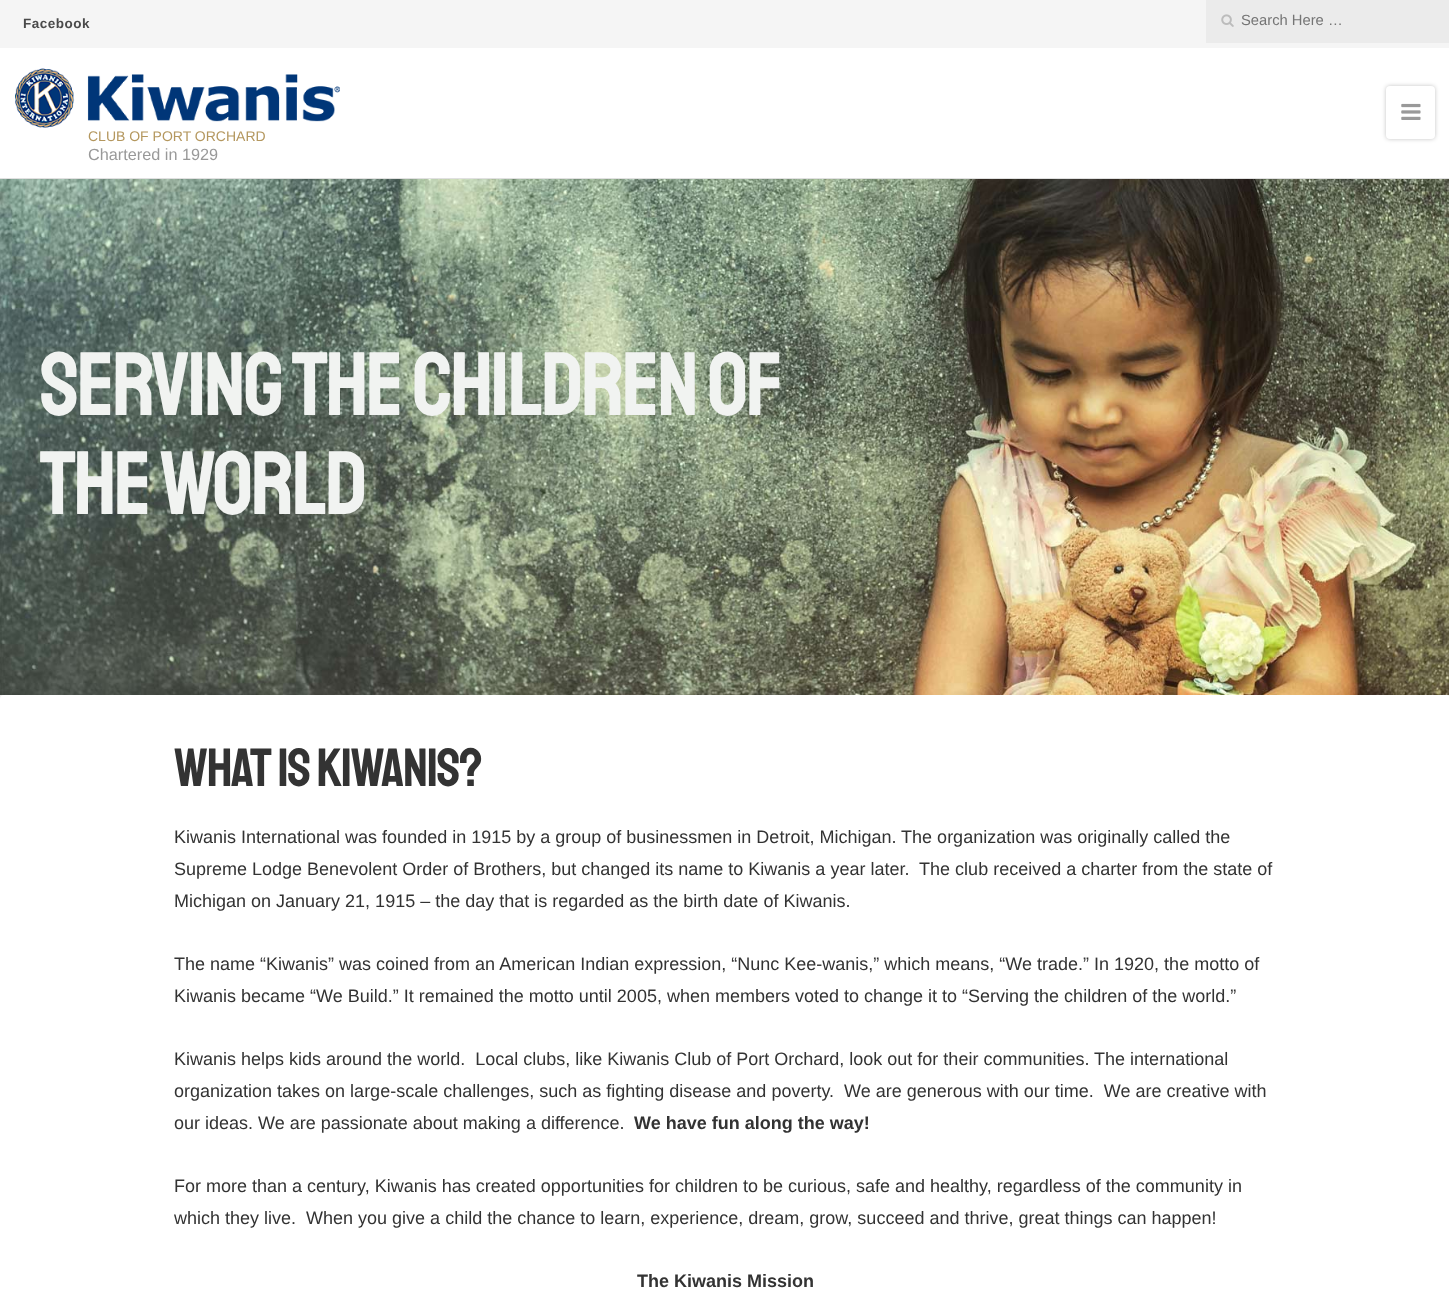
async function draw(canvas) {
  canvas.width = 1449
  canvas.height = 1315
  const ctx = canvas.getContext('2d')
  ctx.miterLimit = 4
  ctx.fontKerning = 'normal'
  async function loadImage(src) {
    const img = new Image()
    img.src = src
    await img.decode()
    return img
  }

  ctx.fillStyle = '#eee'
  ctx.fillRect(0, 0, 1449, 1315)
  ctx.fillStyle = '#fff'
  ctx.fillRect(0, 48, 1449, 130)
  ctx.fillStyle = '#e0e0e0'
  ctx.fillRect(0, 178, 1449, 1)
  ctx.fillStyle = '#f5f5f5'
  ctx.fillRect(0, 0, 1449, 48)
  ctx.letterSpacing = '0.5px'
  ctx.font = 'bold 13.5px Liberation Sans'
  ctx.fillStyle = '#4a4a4a'
  ctx.fillText('Facebook', 23, 28)
  ctx.fillStyle = '#ebebeb'
  ctx.fillRect(1206, 0, 243, 43)
  ctx.drawImage(await loadImage('image0.png'), 1221, 14, 13, 13)
  ctx.letterSpacing = '0px'
  ctx.font = '14.75px Liberation Sans'
  ctx.fillStyle = '#757575'
  ctx.fillText('Search Here …', 1241, 25)
  ctx.drawImage(await loadImage('image1.png'), 15, 68, 325, 60)
  ctx.font = '14px Liberation Sans'
  ctx.fillStyle = '#b4975e'
  ctx.fillText('CLUB OF PORT ORCHARD', 88, 141)
  ctx.font = '16.25px Liberation Sans'
  ctx.fillStyle = '#999'
  ctx.fillText('Chartered in 1929', 88, 160)
  ctx.fillStyle = '#0000003d'
  ctx.filter = 'blur(2px)'
  ctx.beginPath()
  ctx.roundRect(1386, 86, 49, 53, 4)
  ctx.fill()
  ctx.filter = 'none'
  ctx.fillStyle = '#fff'
  ctx.beginPath()
  ctx.roundRect(1386, 86, 49, 53, 4)
  ctx.fill()
  ctx.drawImage(await loadImage('image2.png'), 1401, 103, 20, 17)
  ctx.drawImage(await loadImage('image3.png'), 0, 179, 1449, 516)
  ctx.letterSpacing = '-2.5px'
  ctx.font = '90px Staatliches'
  ctx.fillStyle = '#f1f3f1'
  ctx.fillText('Serving the Children of', 40, 415)
  ctx.fillText('the World', 40, 514)
  ctx.fillStyle = '#fff'
  ctx.beginPath()
  ctx.roundRect(0, 695, 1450, 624, 4)
  ctx.fill()
  ctx.letterSpacing = '-1.25px'
  ctx.font = '54px Staatliches'
  ctx.fillStyle = '#333'
  ctx.fillText('What is Kiwanis?', 174, 786)
  ctx.letterSpacing = '0px'
  ctx.font = '18px Liberation Sans'
  ctx.fillText('Kiwanis International was founded in 1915 by a group of businessmen in Detroit, Michigan. The organization was originally called the', 174, 843)
  ctx.fillText('Supreme Lodge Benevolent Order of Brothers, but changed its name to Kiwanis a year later.  The club received a charter from the state of', 174, 875)
  ctx.fillText('Michigan on January 21, 1915 – the day that is regarded as the birth date of Kiwanis.', 174, 907)
  ctx.fillText('The name “Kiwanis” was coined from an American Indian expression, “Nunc Kee-wanis,” which means, “We trade.” In 1920, the motto of', 174, 970)
  ctx.fillText('Kiwanis became “We Build.” It remained the motto until 2005, when members voted to change it to “Serving the children of the world.”', 174, 1002)
  ctx.fillText('Kiwanis helps kids around the world.  Local clubs, like Kiwanis Club of Port Orchard, look out for their communities. The international', 174, 1065)
  ctx.fillText('organization takes on large-scale challenges, such as fighting disease and poverty.  We are generous with our time.  We are creative with', 174, 1097)
  ctx.fillText('our ideas. We are passionate about making a difference.', 174, 1129)
  ctx.font = 'bold 18px Liberation Sans'
  ctx.fillText('We have fun along the way!', 634, 1129)
  ctx.font = '18px Liberation Sans'
  ctx.fillText('For more than a century, Kiwanis has created opportunities for children to be curious, safe and healthy, regardless of the community in', 174, 1192)
  ctx.fillText('which they live.  When you give a child the chance to learn, experience, dream, grow, succeed and thrive, great things can happen!', 174, 1224)
  ctx.font = 'bold 18px Liberation Sans'
  ctx.fillText('The Kiwanis Mission', 637, 1287)
}

draw(document.querySelector('canvas'))
